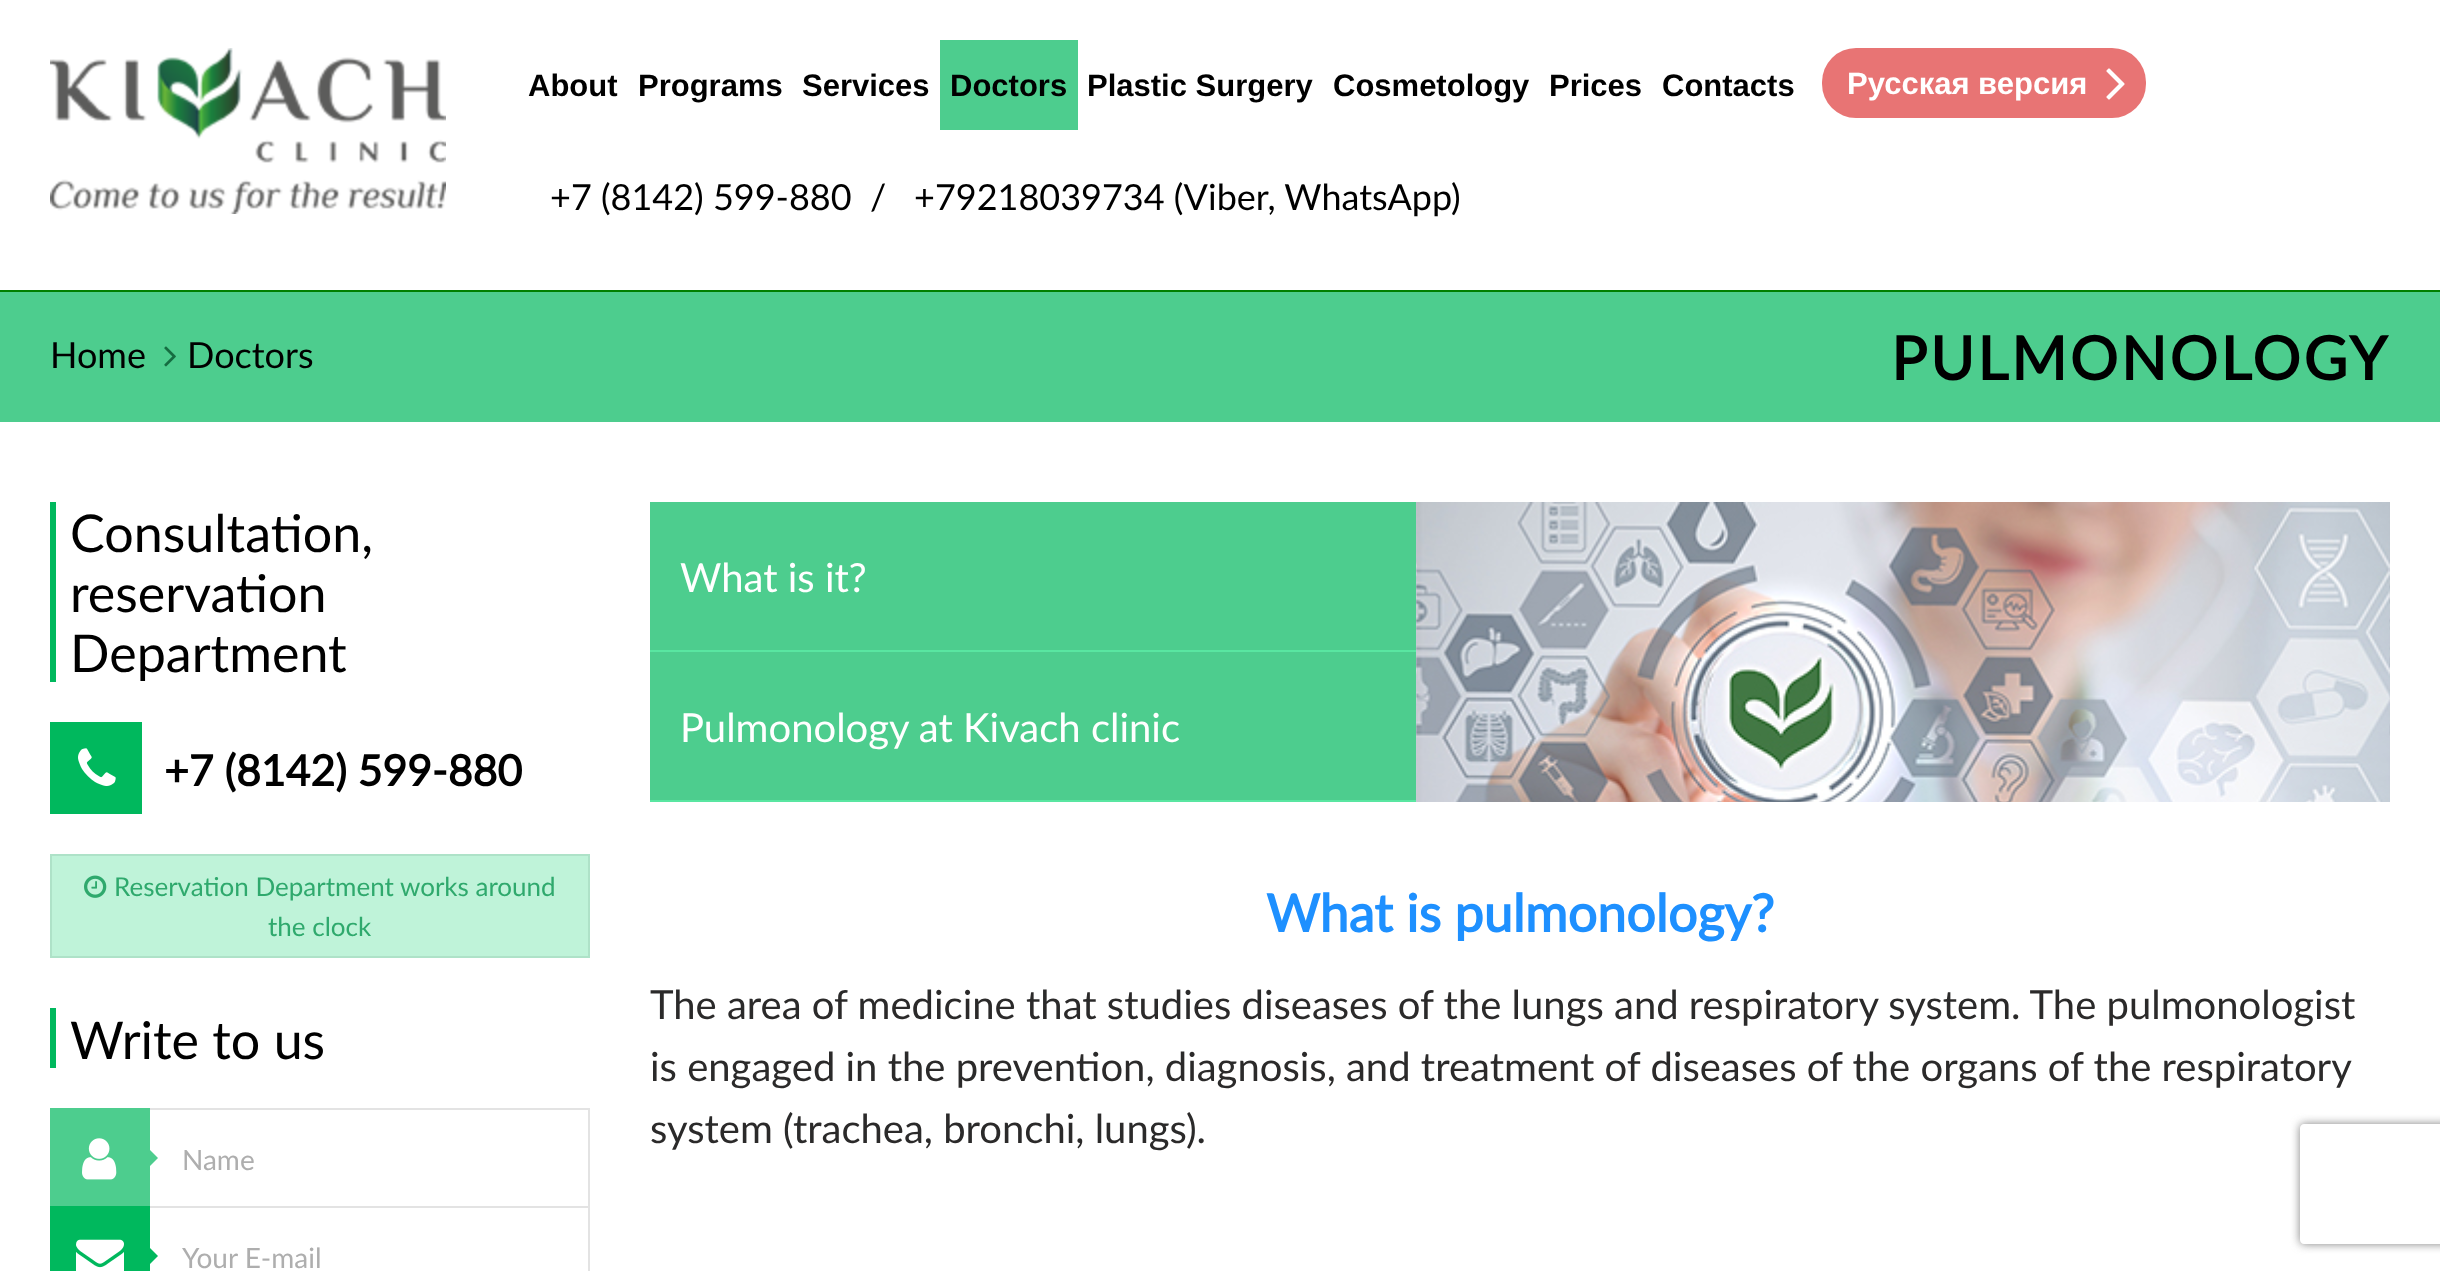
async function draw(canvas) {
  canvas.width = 2440
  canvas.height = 1271
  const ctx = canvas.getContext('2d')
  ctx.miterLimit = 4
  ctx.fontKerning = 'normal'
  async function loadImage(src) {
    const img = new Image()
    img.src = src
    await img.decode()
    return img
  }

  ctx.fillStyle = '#fff'
  ctx.fillRect(0, 0, 2440, 1271)
  ctx.fillStyle = '#008000'
  ctx.fillRect(0, 290, 2440, 2)
  ctx.drawImage(await loadImage('image0.png'), 50, 48, 396, 166)
  ctx.font = 'bold 31px Liberation Sans'
  ctx.fillStyle = '#000'
  ctx.fillText('About', 528, 96)
  ctx.fillText('Programs', 638, 96)
  ctx.fillText('Services', 802, 96)
  ctx.fillStyle = '#4dcd8e'
  ctx.fillRect(940, 40, 138, 90)
  ctx.fillStyle = '#000'
  ctx.fillText('Doctors', 950, 96)
  ctx.fillText('Plastic Surgery', 1087, 96)
  ctx.fillText('Cosmetology', 1333, 96)
  ctx.fillText('Prices', 1549, 96)
  ctx.fillText('Contacts', 1662, 96)
  ctx.fillStyle = '#e87474'
  ctx.beginPath()
  ctx.roundRect(1822, 48, 324, 70, 34)
  ctx.fill()
  ctx.fillStyle = '#fff'
  ctx.fillText('Русская версия', 1847, 94)
  ctx.drawImage(await loadImage('image1.png'), 2106, 68, 19, 32)
  ctx.font = '36px Lato'
  ctx.fillStyle = '#000'
  ctx.fillText('+7 (8142) 599-880', 550, 210)
  ctx.fillText('/', 870, 210)
  ctx.fillText('+79218039734 (Viber, WhatsApp)', 914, 210)
  ctx.fillStyle = '#4dcd8e'
  ctx.fillRect(0, 292, 2440, 130)
  ctx.fillStyle = '#000'
  ctx.fillText('Home', 50, 368)
  ctx.drawImage(await loadImage('image2.png'), 164, 346, 12, 21)
  ctx.fillText('Doctors', 187, 368)
  ctx.letterSpacing = '3px'
  ctx.font = 'bold 60px Lato'
  ctx.fillText('PULMONOLOGY', 1891, 380)
  ctx.fillStyle = '#00b85d'
  ctx.fillRect(50, 502, 6, 180)
  ctx.letterSpacing = '0px'
  ctx.font = '52px Lato'
  ctx.fillStyle = '#000'
  ctx.fillText('Consultation,', 70, 552)
  ctx.fillText('reservation', 70, 612)
  ctx.fillText('Department', 70, 672)
  ctx.fillStyle = '#00b85d'
  ctx.fillRect(50, 722, 92, 92)
  ctx.drawImage(await loadImage('image3.png'), 78, 748, 38, 38)
  ctx.font = 'bold 42.75px Lato'
  ctx.fillStyle = '#000'
  ctx.fillText('+7 (8142) 599-880', 164, 786)
  ctx.fillStyle = '#bff3d9'
  ctx.beginPath()
  ctx.rect(51, 855, 538, 102)
  ctx.fill()
  ctx.strokeStyle = '#aee2c8'
  ctx.lineWidth = 2
  ctx.stroke()
  ctx.drawImage(await loadImage('image4.png'), 84, 875, 23, 23)
  ctx.font = '26px Lato'
  ctx.fillStyle = '#2fa96d'
  ctx.fillText('Reservation Department works around', 114, 896)
  ctx.fillText('the clock', 268, 936)
  ctx.fillStyle = '#00b85d'
  ctx.fillRect(50, 1008, 6, 60)
  ctx.font = '52px Lato'
  ctx.fillStyle = '#000'
  ctx.fillText('Write to us', 70, 1059)
  ctx.strokeStyle = '#e3e3e3'
  ctx.strokeRect(51, 1109, 538, 98)
  ctx.fillStyle = '#4dcd8e'
  ctx.fillRect(50, 1108, 100, 98)
  ctx.drawImage(await loadImage('image5.png'), 82, 1138, 35, 42)
  ctx.beginPath()
  ctx.moveTo(150, 1166)
  ctx.lineTo(150, 1150)
  ctx.lineTo(158, 1158)
  ctx.closePath()
  ctx.fill()
  ctx.font = '28px Lato'
  ctx.fillStyle = '#aeaeae'
  ctx.fillText('Name', 182, 1170)
  ctx.strokeRect(51, 1207, 538, 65)
  ctx.fillStyle = '#00b85d'
  ctx.fillRect(50, 1206, 100, 65)
  ctx.drawImage(await loadImage('image6.png'), 76, 1239, 48, 32)
  ctx.beginPath()
  ctx.moveTo(150, 1264)
  ctx.lineTo(150, 1248)
  ctx.lineTo(158, 1256)
  ctx.closePath()
  ctx.fill()
  ctx.fillStyle = '#aeaeae'
  ctx.fillText('Your E-mail', 182, 1268)
  ctx.save()
  ctx.beginPath()
  ctx.moveTo(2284, 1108)
  ctx.lineTo(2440, 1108)
  ctx.lineTo(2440, 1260)
  ctx.lineTo(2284, 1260)
  ctx.closePath()
  ctx.moveTo(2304, 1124)
  ctx.lineTo(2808, 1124)
  ctx.bezierCurveTo(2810, 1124, 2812, 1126, 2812, 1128)
  ctx.lineTo(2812, 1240)
  ctx.bezierCurveTo(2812, 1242, 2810, 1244, 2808, 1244)
  ctx.lineTo(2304, 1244)
  ctx.bezierCurveTo(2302, 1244, 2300, 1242, 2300, 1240)
  ctx.lineTo(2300, 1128)
  ctx.bezierCurveTo(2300, 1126, 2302, 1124, 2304, 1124)
  ctx.closePath()
  ctx.clip('evenodd')
  ctx.fillStyle = '#808080'
  ctx.filter = 'blur(5px)'
  ctx.beginPath()
  ctx.roundRect(2300, 1124, 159, 120, 4)
  ctx.fill()
  ctx.filter = 'none'
  ctx.restore()
  ctx.fillStyle = '#4dcd8e'
  ctx.fillRect(650, 502, 766, 298)
  ctx.fillStyle = '#59e6a1'
  ctx.fillRect(650, 650, 766, 2)
  ctx.font = '40px Lato'
  ctx.fillStyle = '#fff'
  ctx.fillText('What is it?', 680, 592)
  ctx.fillStyle = '#59e6a1'
  ctx.fillRect(650, 800, 766, 2)
  ctx.fillStyle = '#fff'
  ctx.fillText('Pulmonology at Kivach clinic', 680, 742)
  ctx.drawImage(await loadImage('image7.png'), 1416, 502, 974, 300)
  ctx.font = 'bold 52px Lato'
  ctx.fillStyle = '#1e90ff'
  ctx.fillText('What is pulmonology?', 1266, 932)
  ctx.font = '40px Lato'
  ctx.fillStyle = '#2b2a2a'
  ctx.fillText('The area of medicine that studies diseases of the lungs and respiratory system. The pulmonologist', 650, 1019)
  ctx.fillText('is engaged in the prevention, diagnosis, and treatment of diseases of the organs of the respiratory', 650, 1081)
  ctx.fillText('system (trachea, bronchi, lungs).', 650, 1143)
}

draw(document.querySelector('canvas'))
